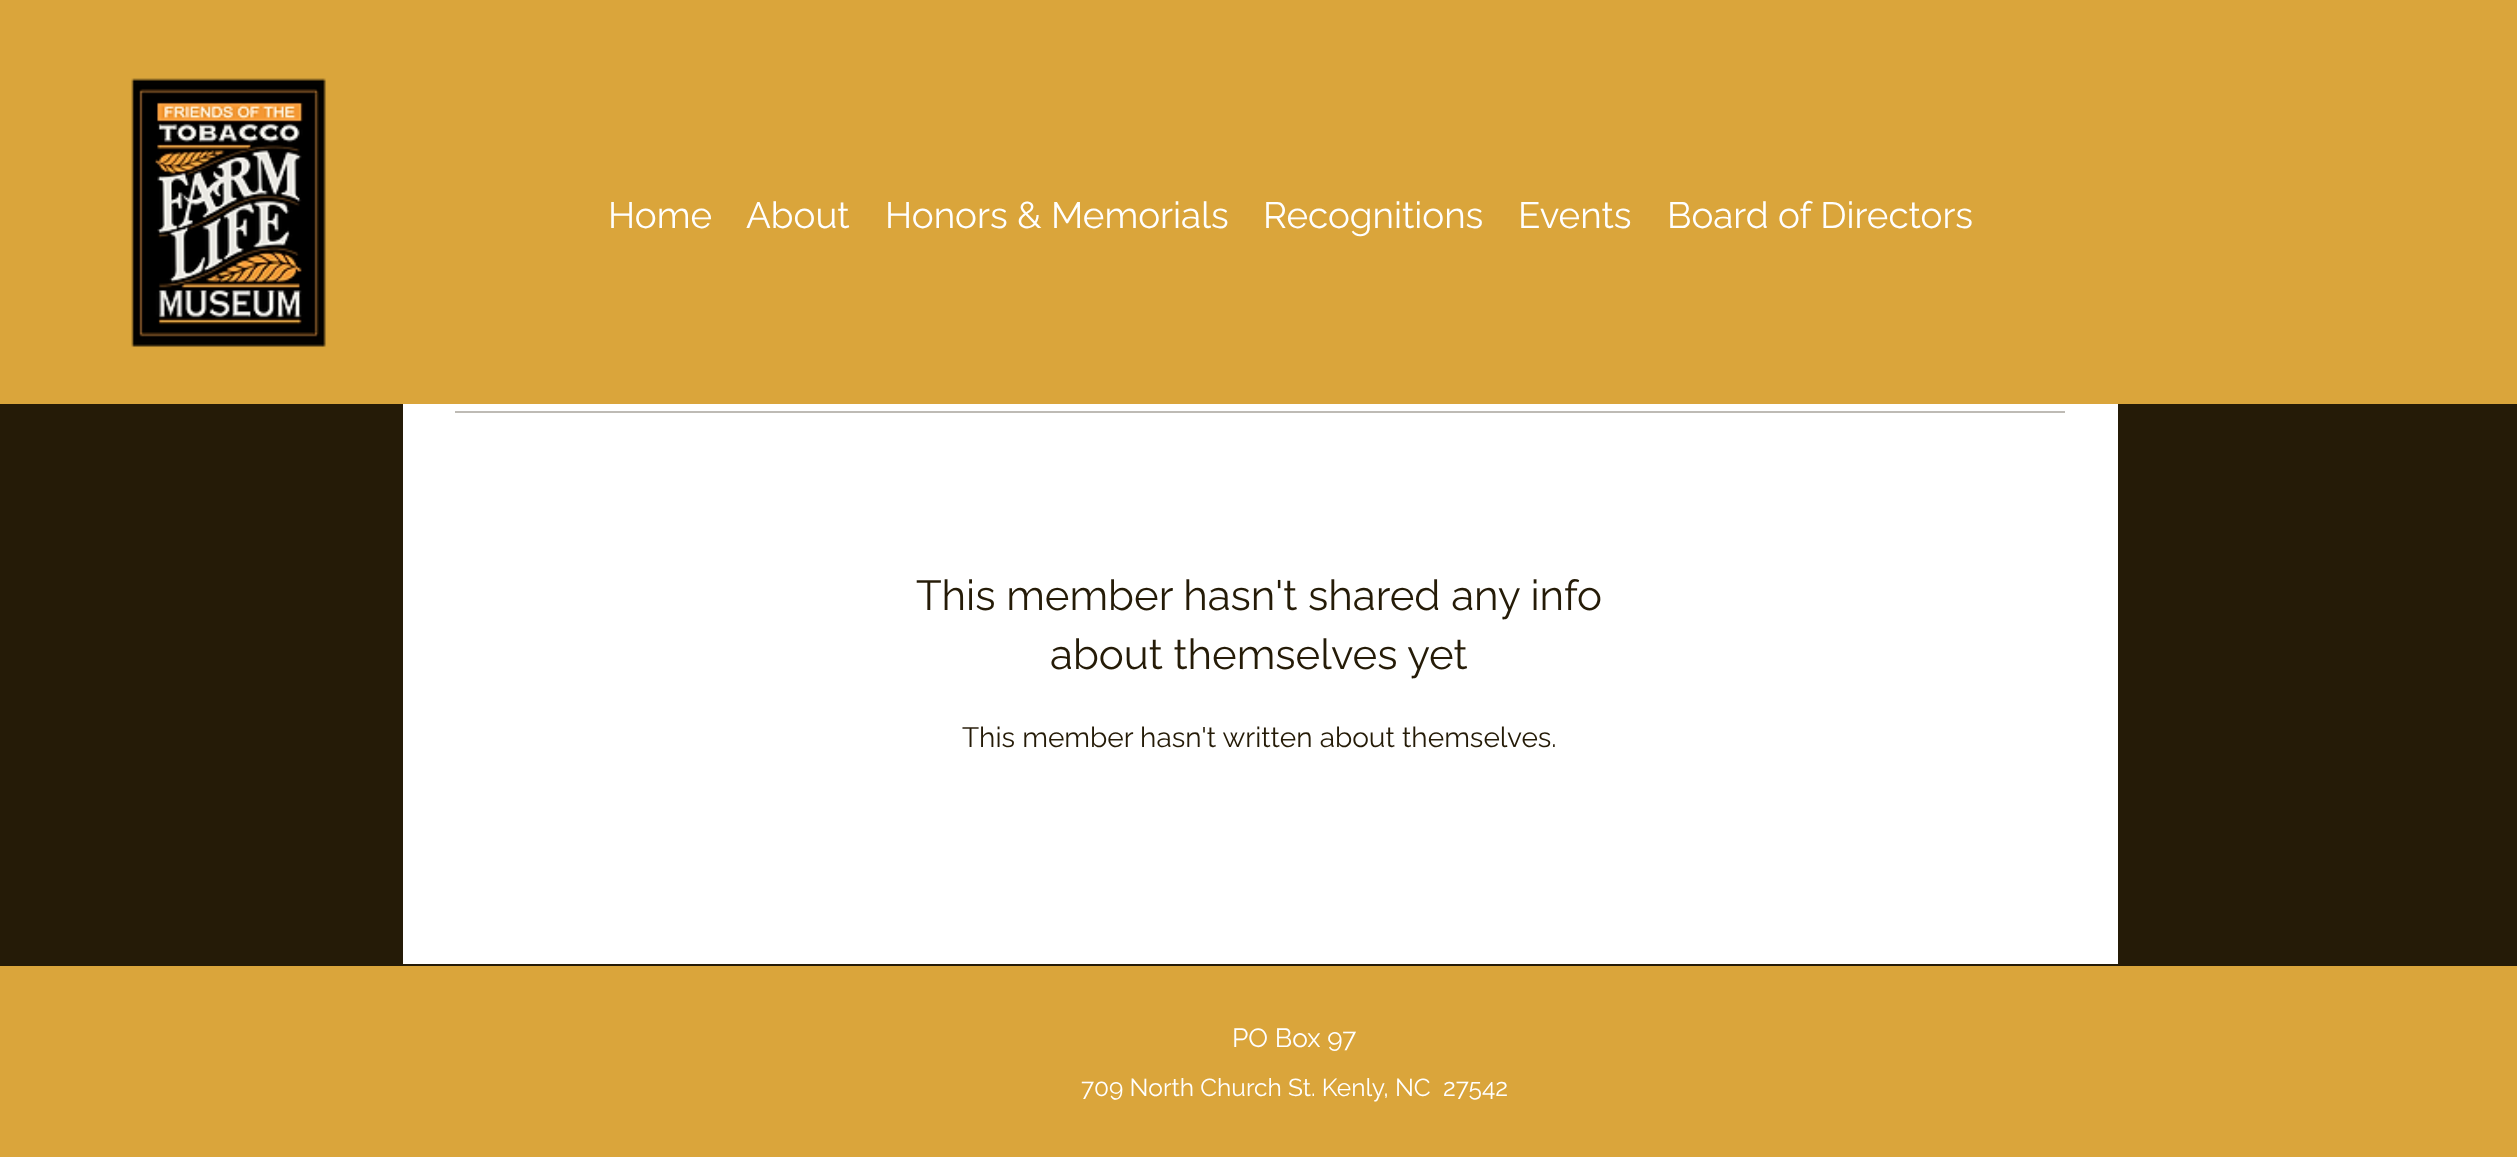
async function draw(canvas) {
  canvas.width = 2517
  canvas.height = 1157
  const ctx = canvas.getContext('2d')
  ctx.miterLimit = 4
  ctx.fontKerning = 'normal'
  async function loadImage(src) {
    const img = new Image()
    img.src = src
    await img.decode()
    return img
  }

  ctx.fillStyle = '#251b07'
  ctx.fillRect(0, 0, 2517, 1157)
  ctx.fillStyle = '#daa53b'
  ctx.fillRect(0, 0, 2517, 404)
  ctx.drawImage(await loadImage('image0.png'), 131, 78, 195, 269)
  ctx.font = '36.75px Raleway'
  ctx.fillStyle = '#fff'
  ctx.fillText('Home', 608, 228)
  ctx.fillText('About', 746, 228)
  ctx.fillText('Honors & Memorials', 885, 228)
  ctx.fillText('Recognitions', 1263, 228)
  ctx.fillText('Events', 1518, 228)
  ctx.fillText('Board of Directors', 1667, 228)
  ctx.fillRect(403, 404, 1715, 560)
  ctx.fillStyle = '#bebbb5'
  ctx.fillRect(455, 411, 1610, 2)
  ctx.font = '42px Raleway'
  ctx.fillStyle = '#251b07'
  ctx.fillText('This member hasn\'t shared any info', 916, 610)
  ctx.fillText('about themselves yet', 1050, 669)
  ctx.font = '28px Raleway'
  ctx.fillText('This member hasn\'t written about themselves.', 962, 747)
  ctx.fillStyle = '#daa53b'
  ctx.fillRect(0, 966, 2517, 191)
  ctx.font = '26.25px Raleway'
  ctx.fillStyle = '#fff'
  ctx.fillText('PO Box 97', 1232, 1047)
  ctx.font = '24.5px Raleway'
  ctx.fillText('709 North Church St. Kenly, NC  27542', 1081, 1096)
}

draw(document.querySelector('canvas'))
